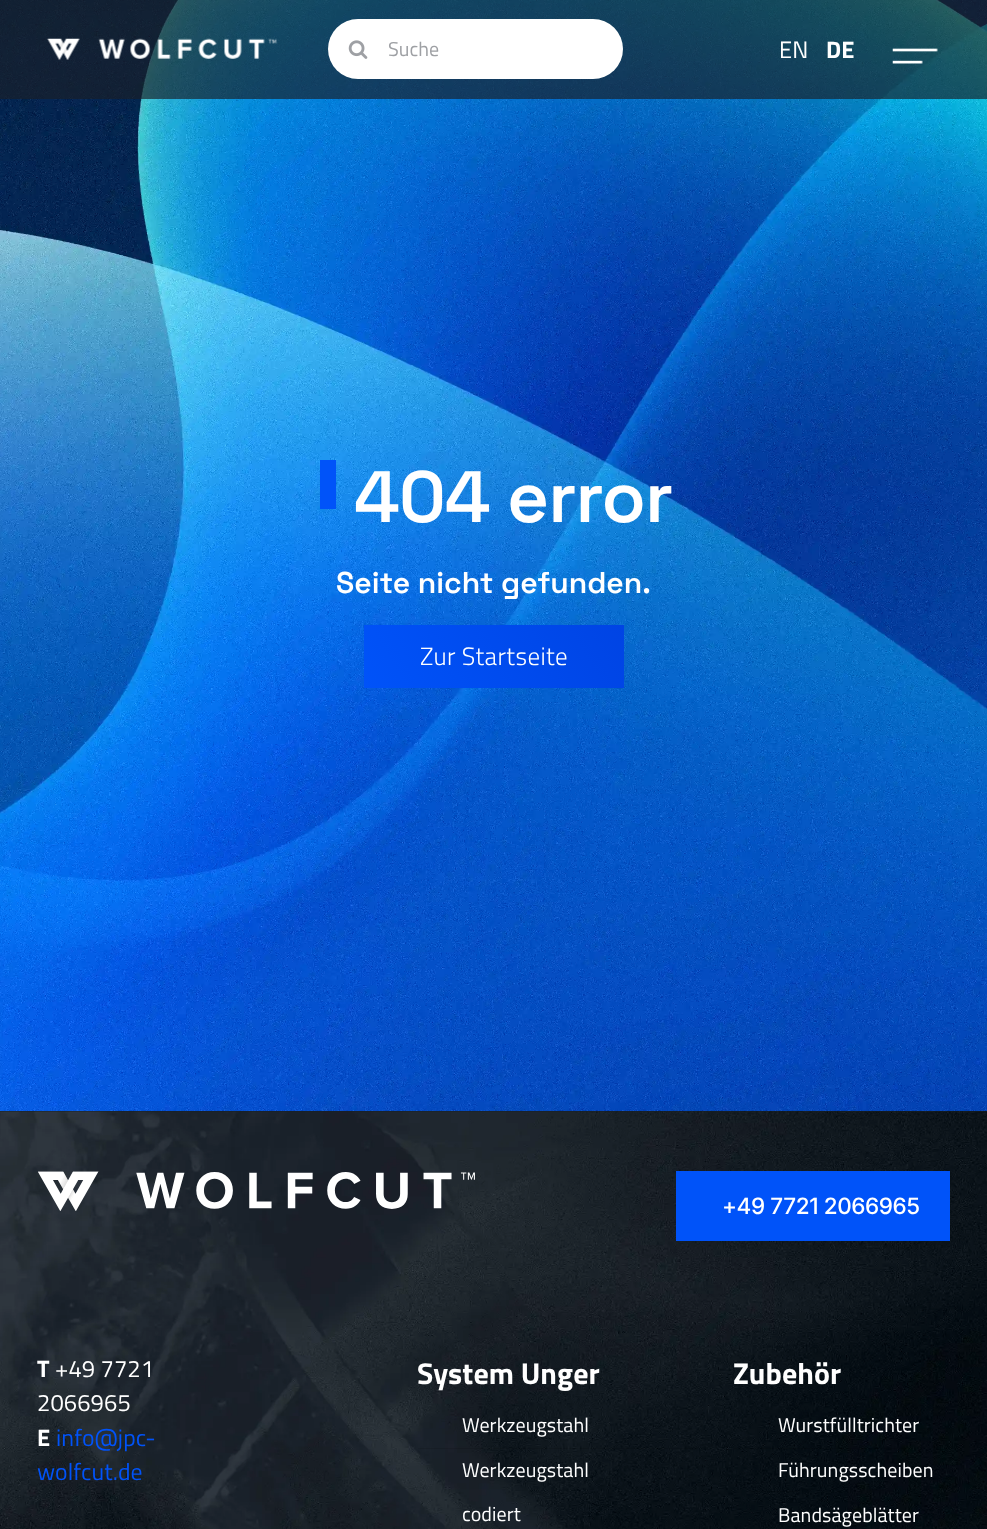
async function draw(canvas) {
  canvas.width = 987
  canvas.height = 1529
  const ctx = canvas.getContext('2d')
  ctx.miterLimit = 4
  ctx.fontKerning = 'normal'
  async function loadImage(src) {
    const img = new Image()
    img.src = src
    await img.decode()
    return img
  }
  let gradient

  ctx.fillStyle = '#fff'
  ctx.fillRect(0, 0, 987, 1529)
  ctx.drawImage(await loadImage('image3.png'), 0, 0, 987, 1111)
  ctx.fillStyle = '#192028ab'
  ctx.fillRect(0, 0, 987, 99)
  ctx.drawImage(await loadImage('image0.png'), 47, 38, 230, 22)
  ctx.fillStyle = '#fff'
  ctx.beginPath()
  ctx.roundRect(328, 19, 295, 60, 30)
  ctx.fill()
  ctx.drawImage(await loadImage('image1.png'), 348, 40, 20, 19)
  ctx.font = '20px Titillium Web'
  ctx.fillStyle = '#9ea0a4'
  ctx.fillText('Suche', 388, 56)
  ctx.letterSpacing = '0.1px'
  ctx.font = '23.75px Titillium Web'
  ctx.fillStyle = '#fff'
  ctx.fillText('EN', 779, 58)
  ctx.font = 'bold 23.75px Titillium Web'
  ctx.fillText('DE', 826, 58)
  ctx.drawImage(await loadImage('image2.png'), 892, 48, 46, 16)
  ctx.fillStyle = '#0053f9'
  ctx.fillRect(320, 460, 16, 49)
  ctx.letterSpacing = '-1px'
  ctx.font = '600 72.5px Space Grotesk'
  ctx.fillStyle = '#fff'
  ctx.fillText('404 error', 354, 522)
  ctx.letterSpacing = '0px'
  ctx.font = '600 30px Space Grotesk'
  ctx.fillText('Seite nicht gefunden.', 336, 593)
  gradient = ctx.createLinearGradient(605, 592, 383, 720)
  gradient.addColorStop(0, '#0044e4')
  gradient.addColorStop(1, '#0053f9')
  ctx.fillStyle = gradient
  ctx.fillRect(364, 625, 260, 63)
  ctx.letterSpacing = '0.4px'
  ctx.font = '300 25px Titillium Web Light'
  ctx.fillStyle = '#fff'
  ctx.fillText('Zur Startseite', 420, 665)
  ctx.fillStyle = '#192028'
  ctx.fillRect(0, 1111, 987, 1)
  ctx.drawImage(await loadImage('image4.png'), 0, 1111, 987, 418)
  ctx.drawImage(await loadImage('image5.png'), 38, 1171, 437, 40)
  ctx.fillStyle = '#0053f9'
  ctx.fillRect(676, 1171, 274, 70)
  ctx.letterSpacing = '-0.4px'
  ctx.font = '500 22.5px Inter'
  ctx.fillStyle = '#fff'
  ctx.fillText('+49 7721 2066965', 722, 1214)
  ctx.letterSpacing = '0.1px'
  ctx.font = 'bold 23.75px Titillium Web'
  ctx.fillText('T', 37, 1377)
  ctx.font = '23.75px Titillium Web'
  ctx.fillText('+49 7721', 55, 1377)
  ctx.fillText('2066965', 37, 1411)
  ctx.font = 'bold 23.75px Titillium Web'
  ctx.fillText('E', 37, 1446)
  ctx.font = '23.75px Titillium Web'
  ctx.fillStyle = '#0053f9'
  ctx.fillText('info@jpc-', 56, 1446)
  ctx.fillText('wolfcut.de', 37, 1480)
  ctx.font = 'bold 30px Titillium Web'
  ctx.fillStyle = '#fff'
  ctx.fillText('System Unger', 417, 1384)
  ctx.fillStyle = '#0000001a'
  ctx.fillRect(418, 1448, 280, 1)
  ctx.font = '20px Titillium Web'
  ctx.fillStyle = '#fff'
  ctx.fillText('Werkzeugstahl', 462, 1432)
  ctx.fillText('Werkzeugstahl', 462, 1477)
  ctx.fillText('codiert', 462, 1521)
  ctx.font = 'bold 30px Titillium Web'
  ctx.fillText('Zubehör', 733, 1384)
  ctx.fillStyle = '#0000001a'
  ctx.fillRect(734, 1448, 180, 1)
  ctx.font = '20px Titillium Web'
  ctx.fillStyle = '#fff'
  ctx.fillText('Wurstfülltrichter', 778, 1432)
  ctx.fillStyle = '#0000001a'
  ctx.fillRect(749, 1491, 50, 1)
  ctx.fillStyle = '#fff'
  ctx.fillText('Führungsscheiben', 778, 1477)
  ctx.fillText('Bandsägeblätter', 778, 1522)
}

draw(document.querySelector('canvas'))
